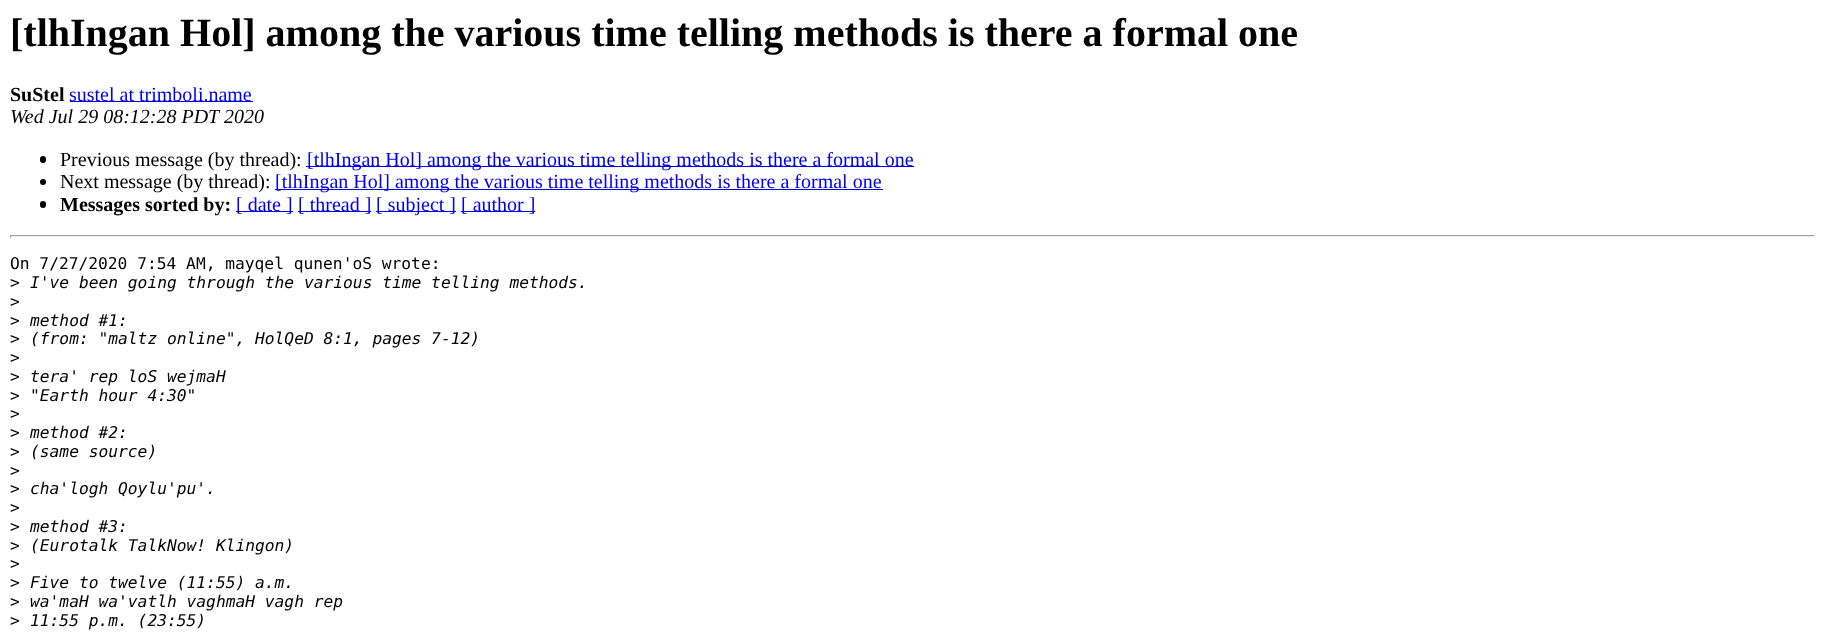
async function draw(canvas) {
  canvas.width = 1824
  canvas.height = 634
  const ctx = canvas.getContext('2d')
  ctx.miterLimit = 4
  ctx.fontKerning = 'normal'

  ctx.fillStyle = '#fff'
  ctx.fillRect(0, 0, 1824, 634)
  ctx.font = 'bold 40px Liberation Serif'
  ctx.fillStyle = '#000'
  ctx.fillText('[tlhIngan Hol] among the various time telling methods is there a formal one', 10, 46)
  ctx.font = 'bold 20px Liberation Serif'
  ctx.fillText('SuStel', 10, 101)
  ctx.fillStyle = '#00e'
  ctx.fillRect(70, 101, 183, 1)
  ctx.font = '20px Liberation Serif'
  ctx.fillText('sustel at trimboli.name', 69, 101)
  ctx.font = 'italic 20px Liberation Serif'
  ctx.fillStyle = '#000'
  ctx.fillText('Wed Jul 29 08:12:28 PDT 2020', 10, 123)
  ctx.beginPath()
  ctx.roundRect(40, 156, 6, 7, 3)
  ctx.fill()
  ctx.font = '20px Liberation Serif'
  ctx.fillText('Previous message (by thread):', 60, 166)
  ctx.fillStyle = '#00e'
  ctx.fillRect(306, 166, 608, 1)
  ctx.fillText('[tlhIngan Hol] among the various time telling methods is there a formal one', 307, 166)
  ctx.fillStyle = '#000'
  ctx.beginPath()
  ctx.arc(43, 182, 3, 0, 2 * Math.PI)
  ctx.fill()
  ctx.fillText('Next message (by thread):', 60, 188)
  ctx.fillStyle = '#00e'
  ctx.fillRect(275, 189, 608, 1)
  ctx.fillText('[tlhIngan Hol] among the various time telling methods is there a formal one', 275, 188)
  ctx.fillStyle = '#000'
  ctx.beginPath()
  ctx.roundRect(40, 201, 6, 7, 3)
  ctx.fill()
  ctx.font = 'bold 20px Liberation Serif'
  ctx.fillText('Messages sorted by:', 60, 211)
  ctx.fillStyle = '#00e'
  ctx.fillRect(236, 211, 57, 1)
  ctx.font = '20px Liberation Serif'
  ctx.fillText('[ date ]', 236, 211)
  ctx.fillRect(298, 211, 73, 1)
  ctx.fillText('[ thread ]', 298, 211)
  ctx.fillRect(376, 211, 80, 1)
  ctx.fillText('[ subject ]', 376, 211)
  ctx.fillRect(461, 211, 74, 1)
  ctx.fillText('[ author ]', 461, 211)
  ctx.fillStyle = '#9f9f9f'
  ctx.fillRect(10, 235, 1805, 1)
  ctx.fillStyle = '#eee'
  ctx.fillRect(1814, 235, 1, 3)
  ctx.fillRect(10, 236, 1805, 1)
  ctx.fillStyle = '#9f9f9f'
  ctx.fillRect(10, 235, 1, 3)
  ctx.font = '16.25px DejaVu Sans Mono'
  ctx.fillStyle = '#000'
  ctx.fillText('On 7/27/2020 7:54 AM, mayqel qunen\'oS wrote:', 10, 269)
  ctx.fillText('>', 10, 288)
  ctx.font = 'italic 16.25px DejaVu Sans Mono'
  ctx.fillText('I\'ve been going through the various time telling methods.', 30, 288)
  ctx.font = '16.25px DejaVu Sans Mono'
  ctx.fillText('>', 10, 307)
  ctx.fillText('>', 10, 326)
  ctx.font = 'italic 16.25px DejaVu Sans Mono'
  ctx.fillText('method #1:', 30, 326)
  ctx.font = '16.25px DejaVu Sans Mono'
  ctx.fillText('>', 10, 344)
  ctx.font = 'italic 16.25px DejaVu Sans Mono'
  ctx.fillText('(from: "maltz online", HolQeD 8:1, pages 7-12)', 30, 344)
  ctx.font = '16.25px DejaVu Sans Mono'
  ctx.fillText('>', 10, 363)
  ctx.fillText('>', 10, 382)
  ctx.font = 'italic 16.25px DejaVu Sans Mono'
  ctx.fillText('tera\' rep loS wejmaH', 30, 382)
  ctx.font = '16.25px DejaVu Sans Mono'
  ctx.fillText('>', 10, 401)
  ctx.font = 'italic 16.25px DejaVu Sans Mono'
  ctx.fillText('"Earth hour 4:30"', 30, 401)
  ctx.font = '16.25px DejaVu Sans Mono'
  ctx.fillText('>', 10, 419)
  ctx.fillText('>', 10, 438)
  ctx.font = 'italic 16.25px DejaVu Sans Mono'
  ctx.fillText('method #2:', 30, 438)
  ctx.font = '16.25px DejaVu Sans Mono'
  ctx.fillText('>', 10, 457)
  ctx.font = 'italic 16.25px DejaVu Sans Mono'
  ctx.fillText('(same source)', 30, 457)
  ctx.font = '16.25px DejaVu Sans Mono'
  ctx.fillText('>', 10, 476)
  ctx.fillText('>', 10, 494)
  ctx.font = 'italic 16.25px DejaVu Sans Mono'
  ctx.fillText('cha\'logh Qoylu\'pu\'.', 30, 494)
  ctx.font = '16.25px DejaVu Sans Mono'
  ctx.fillText('>', 10, 513)
  ctx.fillText('>', 10, 532)
  ctx.font = 'italic 16.25px DejaVu Sans Mono'
  ctx.fillText('method #3:', 30, 532)
  ctx.font = '16.25px DejaVu Sans Mono'
  ctx.fillText('>', 10, 551)
  ctx.font = 'italic 16.25px DejaVu Sans Mono'
  ctx.fillText('(Eurotalk TalkNow! Klingon)', 30, 551)
  ctx.font = '16.25px DejaVu Sans Mono'
  ctx.fillText('>', 10, 569)
  ctx.fillText('>', 10, 588)
  ctx.font = 'italic 16.25px DejaVu Sans Mono'
  ctx.fillText('Five to twelve (11:55) a.m.', 30, 588)
  ctx.font = '16.25px DejaVu Sans Mono'
  ctx.fillText('>', 10, 607)
  ctx.font = 'italic 16.25px DejaVu Sans Mono'
  ctx.fillText('wa\'maH wa\'vatlh vaghmaH vagh rep', 30, 607)
  ctx.font = '16.25px DejaVu Sans Mono'
  ctx.fillText('>', 10, 626)
  ctx.font = 'italic 16.25px DejaVu Sans Mono'
  ctx.fillText('11:55 p.m. (23:55)', 30, 626)
}

draw(document.querySelector('canvas'))
